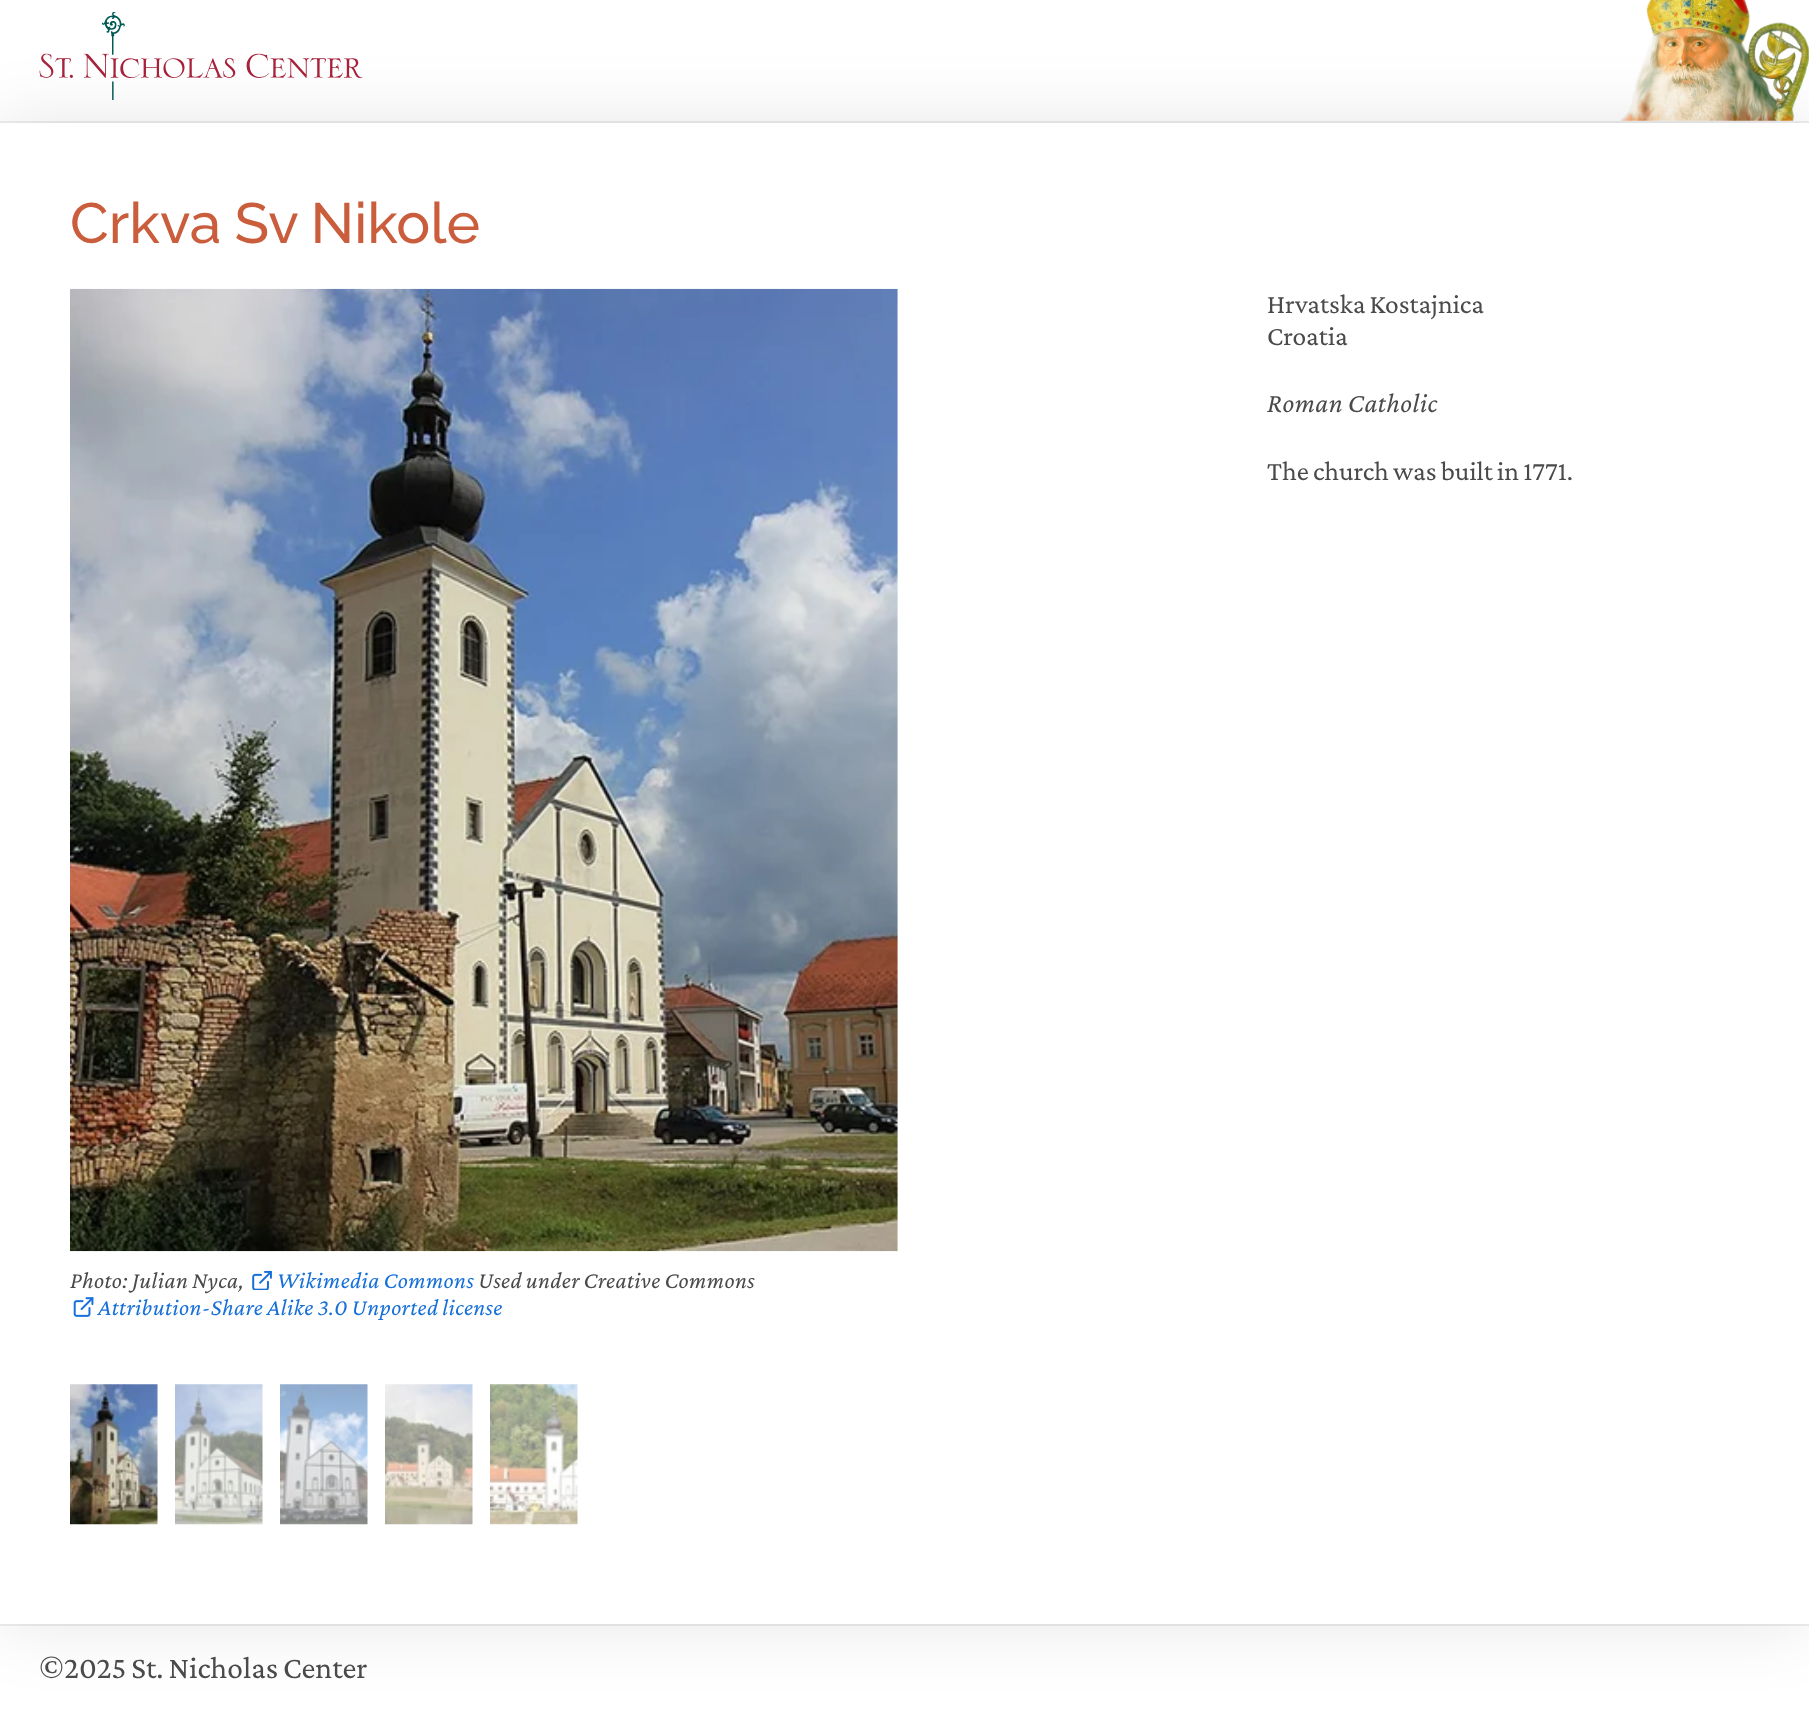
async function draw(canvas) {
  canvas.width = 1809
  canvas.height = 1709
  const ctx = canvas.getContext('2d')
  ctx.miterLimit = 4
  ctx.fontKerning = 'normal'
  async function loadImage(src) {
    const img = new Image()
    img.src = src
    await img.decode()
    return img
  }

  ctx.fillStyle = '#fff'
  ctx.fillRect(0, 0, 1809, 1709)
  ctx.drawImage(await loadImage('image0.png'), 1620, 0, 189, 121)
  ctx.fillStyle = '#eee'
  ctx.fillRect(0, 121, 1809, 2)
  ctx.drawImage(await loadImage('image1.png'), 39, 12, 324, 88)
  ctx.fillRect(0, 1624, 1809, 2)
  ctx.save()
  ctx.beginPath()
  ctx.moveTo(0, 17)
  ctx.lineTo(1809, 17)
  ctx.lineTo(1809, 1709)
  ctx.lineTo(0, 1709)
  ctx.closePath()
  ctx.moveTo(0, 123)
  ctx.lineTo(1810, 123)
  ctx.lineTo(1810, 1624)
  ctx.lineTo(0, 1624)
  ctx.closePath()
  ctx.clip('evenodd')
  ctx.fillStyle = '#0000001a'
  ctx.filter = 'blur(35px)'
  ctx.beginPath()
  ctx.rect(0, 123, 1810, 1501)
  ctx.fill()
  ctx.filter = 'none'
  ctx.restore()
  ctx.wordSpacing = '-1px'
  ctx.font = '500 56.75px Raleway'
  ctx.fillStyle = '#ca5d3c'
  ctx.fillText('Crkva Sv Nikole', 70, 243)
  ctx.font = '27.5px Crimson Pro'
  ctx.fillStyle = '#4a4a4a'
  ctx.fillText('Hrvatska Kostajnica', 1267, 313)
  ctx.wordSpacing = '0px'
  ctx.fillText('Croatia', 1267, 345)
  ctx.letterSpacing = '0.5px'
  ctx.wordSpacing = '-1px'
  ctx.font = 'italic 27.5px Crimson Pro'
  ctx.fillText('Roman Catholic', 1267, 412)
  ctx.letterSpacing = '0px'
  ctx.font = '27.5px Crimson Pro'
  ctx.fillText('The church was built in 1771.', 1267, 480)
  ctx.drawImage(await loadImage('image2.png'), 70, 288, 828, 964)
  ctx.letterSpacing = '0.4px'
  ctx.font = 'italic 23.6px Crimson Pro'
  ctx.fillText('Photo: Julian Nyca,', 70, 1288)
  ctx.drawImage(await loadImage('image3.png'), 252, 1270, 20, 20)
  ctx.fillStyle = '#1770d8'
  ctx.fillText('Wikimedia Commons', 277, 1288)
  ctx.fillStyle = '#4a4a4a'
  ctx.fillText('Used under Creative Commons', 478, 1288)
  ctx.drawImage(await loadImage('image4.png'), 73, 1297, 21, 20)
  ctx.fillStyle = '#1770d8'
  ctx.fillText('Attribution-Share Alike 3.0 Unported license', 98, 1315)
  ctx.drawImage(await loadImage('image5.png'), 70, 1384, 88, 141)
  ctx.drawImage(await loadImage('image6.png'), 175, 1384, 88, 141)
  ctx.drawImage(await loadImage('image7.png'), 280, 1384, 88, 141)
  ctx.drawImage(await loadImage('image8.png'), 385, 1384, 88, 141)
  ctx.drawImage(await loadImage('image9.png'), 490, 1384, 88, 141)
  ctx.letterSpacing = '0px'
  ctx.font = '31.5px Crimson Pro'
  ctx.fillStyle = '#4a4a4a'
  ctx.fillText('©2025 St. Nicholas Center', 39, 1678)
}

draw(document.querySelector('canvas'))
